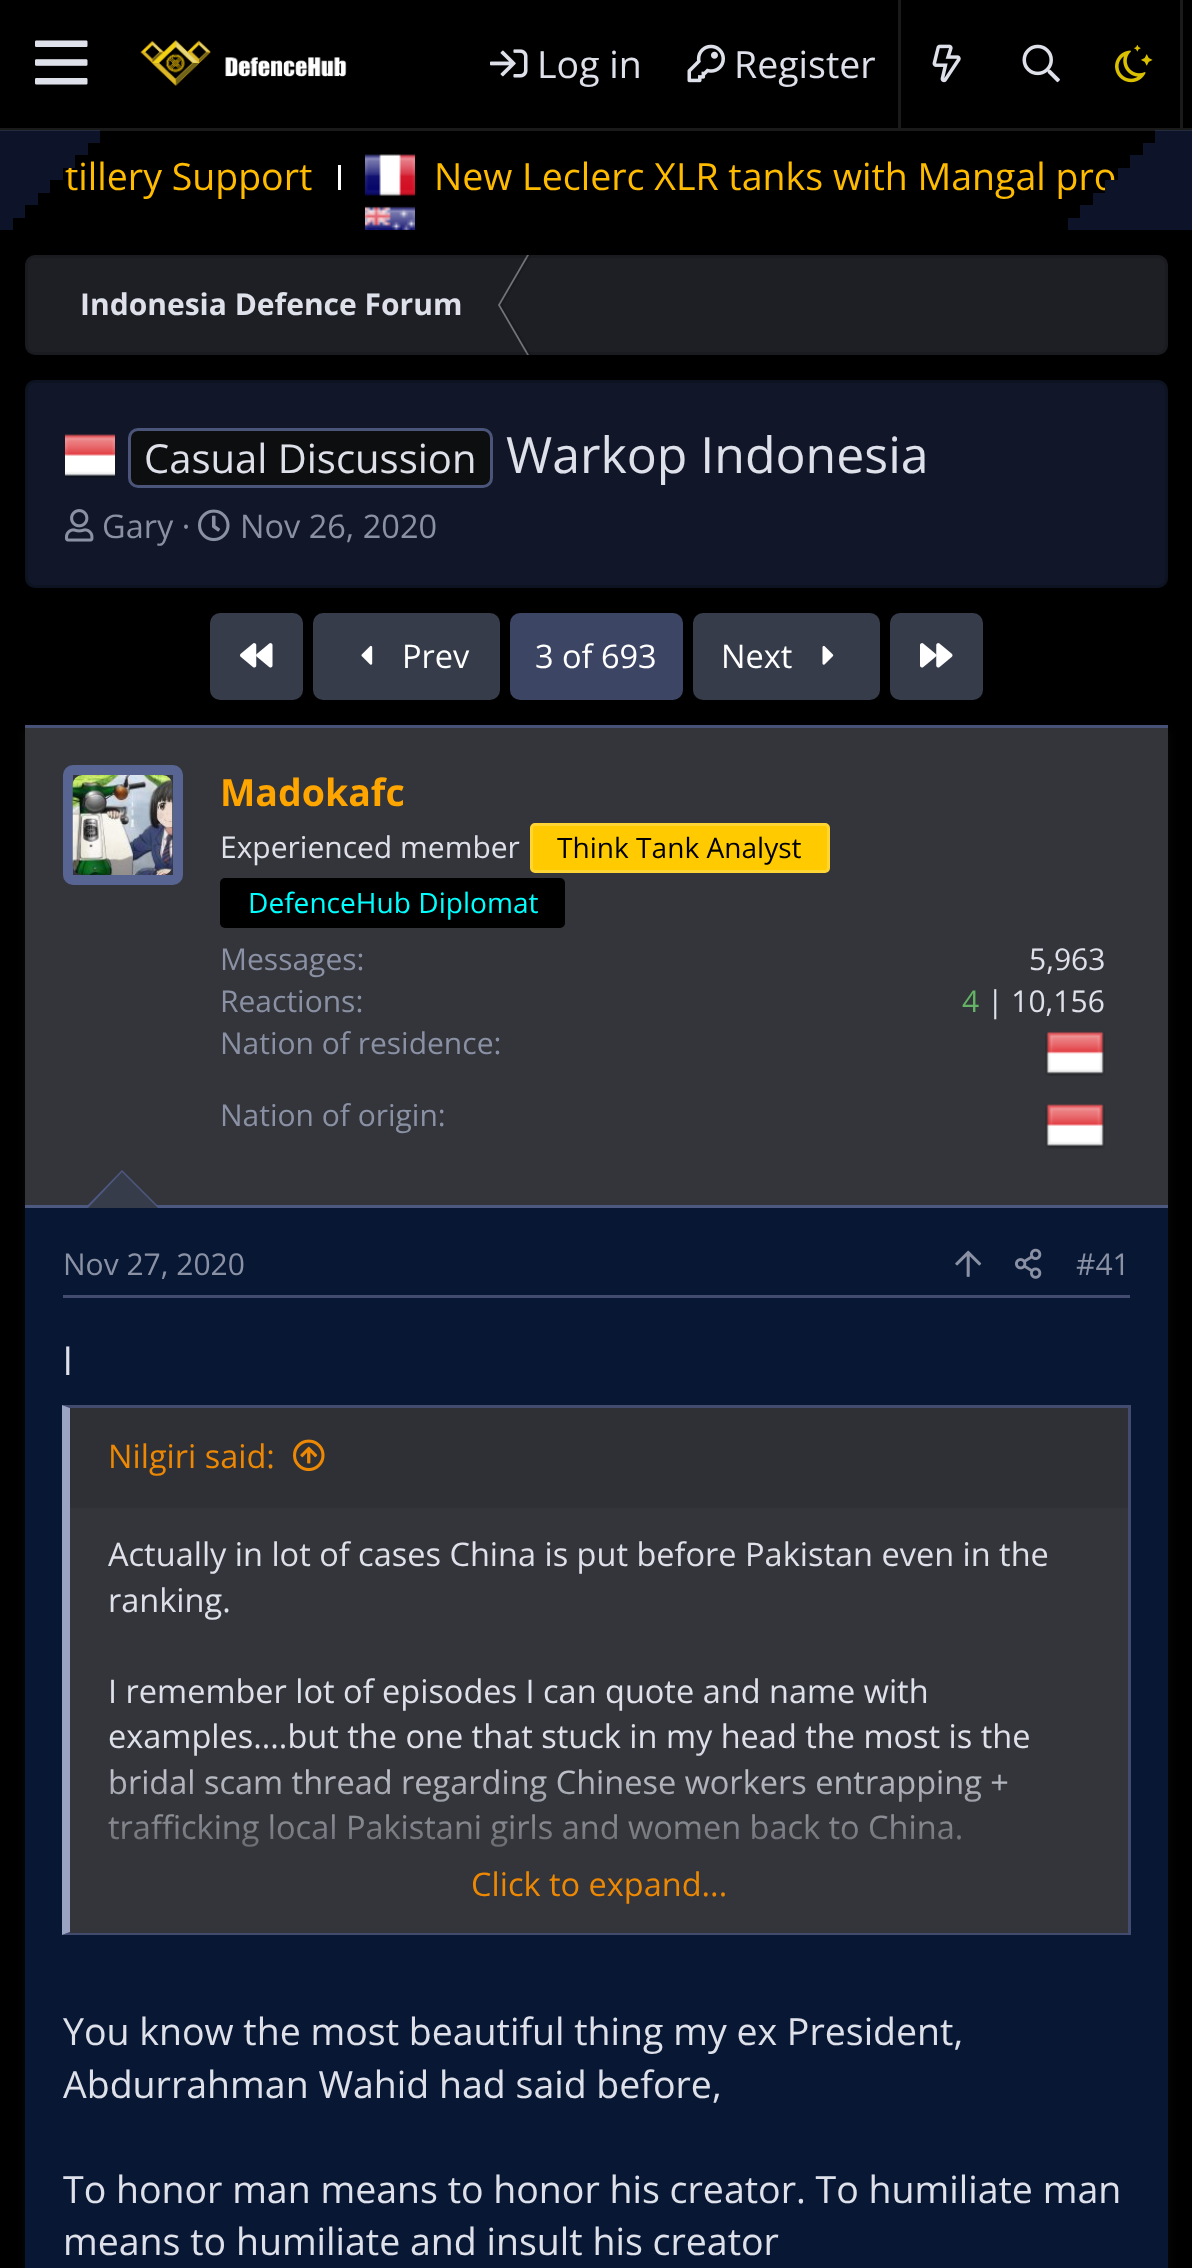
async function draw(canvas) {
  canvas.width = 1192
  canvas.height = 2268
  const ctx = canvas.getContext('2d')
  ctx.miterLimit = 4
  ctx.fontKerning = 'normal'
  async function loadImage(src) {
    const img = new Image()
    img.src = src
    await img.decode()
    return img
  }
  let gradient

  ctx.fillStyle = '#000'
  ctx.fillRect(0, 0, 1192, 2268)
  ctx.fillStyle = '#1a1a1a'
  ctx.fillRect(0, 128, 1192, 2)
  ctx.drawImage(await loadImage('image0.png'), 35, 40, 53, 45)
  ctx.drawImage(await loadImage('image1.png'), 140, 40, 207, 46)
  ctx.drawImage(await loadImage('image2.png'), 490, 49, 38, 29)
  ctx.font = '37.5px Open Sans'
  ctx.fillStyle = '#dee0ea'
  ctx.fillText('Log in', 537, 78)
  ctx.drawImage(await loadImage('image3.png'), 687, 44, 38, 39)
  ctx.fillText('Register', 734, 78)
  ctx.fillStyle = '#1a1a1a'
  ctx.fillRect(1180, 0, 3, 128)
  ctx.fillRect(898, 0, 3, 128)
  ctx.drawImage(await loadImage('image4.png'), 932, 44, 29, 39)
  ctx.drawImage(await loadImage('image5.png'), 1022, 44, 38, 39)
  ctx.drawImage(await loadImage('image6.png'), 1115, 44, 38, 39)
  ctx.fillRect(100, 130, 1055, 1)
  ctx.fillStyle = '#0d1328'
  ctx.fillRect(0, 131, 100, 12)
  ctx.fillStyle = '#252b3e'
  ctx.fillRect(0, 130, 100, 1)
  ctx.fillStyle = '#0d1328'
  ctx.fillRect(0, 143, 88, 12)
  ctx.fillStyle = '#fb0'
  ctx.fillText('tillery Support', 65, 190)
  ctx.fillStyle = '#0d1328'
  ctx.fillRect(0, 155, 75, 13)
  ctx.fillRect(0, 168, 63, 12)
  ctx.fillRect(0, 180, 50, 13)
  ctx.fillRect(0, 193, 38, 12)
  ctx.fillRect(0, 205, 25, 13)
  ctx.fillRect(0, 218, 13, 12)
  ctx.fillStyle = '#fff'
  ctx.fillRect(338, 165, 3, 25)
  ctx.drawImage(await loadImage('image7.png'), 365, 154, 50, 42)
  ctx.fillStyle = '#fb0'
  ctx.fillText('New Leclerc XLR tanks with Mangal pro', 434, 190)
  ctx.drawImage(await loadImage('image8.png'), 365, 206, 50, 24)
  ctx.fillStyle = '#0d1328'
  ctx.fillRect(1155, 131, 37, 12)
  ctx.fillStyle = '#252b3e'
  ctx.fillRect(1155, 130, 37, 1)
  ctx.fillStyle = '#0d1328'
  ctx.fillRect(1143, 143, 49, 12)
  ctx.fillRect(1130, 155, 62, 13)
  ctx.fillRect(1118, 168, 74, 12)
  ctx.fillRect(1105, 180, 87, 13)
  ctx.fillRect(1093, 193, 99, 12)
  ctx.fillRect(1080, 205, 112, 13)
  ctx.fillRect(1068, 218, 124, 12)
  ctx.fillStyle = '#1e1f25'
  ctx.beginPath()
  ctx.roundRect(25, 255, 1143, 100, 10)
  ctx.fill()
  ctx.fillStyle = '#747478'
  ctx.beginPath()
  ctx.moveTo(527, 255)
  ctx.lineTo(529, 255)
  ctx.lineTo(500, 305)
  ctx.lineTo(498, 305)
  ctx.closePath()
  ctx.fill()
  ctx.fillStyle = '#0000001a'
  ctx.beginPath()
  ctx.moveTo(529, 255)
  ctx.lineTo(532, 255)
  ctx.lineTo(503, 305)
  ctx.lineTo(500, 305)
  ctx.closePath()
  ctx.fill()
  ctx.fillStyle = '#747478'
  ctx.beginPath()
  ctx.moveTo(498, 305)
  ctx.lineTo(500, 305)
  ctx.lineTo(529, 355)
  ctx.lineTo(527, 355)
  ctx.closePath()
  ctx.fill()
  ctx.fillStyle = '#0000001a'
  ctx.beginPath()
  ctx.moveTo(500, 305)
  ctx.lineTo(503, 305)
  ctx.lineTo(532, 355)
  ctx.lineTo(529, 355)
  ctx.closePath()
  ctx.fill()
  ctx.beginPath()
  ctx.roundRect(26.5, 256.5, 1140, 97, 8.5)
  ctx.strokeStyle = '#0000001a'
  ctx.lineWidth = 3
  ctx.stroke()
  ctx.font = 'bold 30px Open Sans'
  ctx.fillStyle = '#dee0ea'
  ctx.fillText('Indonesia Defence Forum', 80, 315)
  ctx.fillStyle = '#111728'
  ctx.beginPath()
  ctx.roundRect(25, 380, 1143, 208, 10)
  ctx.fill()
  ctx.beginPath()
  ctx.roundRect(26.5, 381.5, 1140, 205, 8.5)
  ctx.strokeStyle = '#00000026'
  ctx.stroke()
  ctx.drawImage(await loadImage('image9.png'), 65, 434, 50, 44)
  ctx.fillStyle = '#0d0e0f'
  ctx.beginPath()
  ctx.roundRect(129.5, 429.5, 362, 57, 8.5)
  ctx.fill()
  ctx.strokeStyle = '#4b5579'
  ctx.stroke()
  ctx.font = '40px Open Sans'
  ctx.fillStyle = '#dee0ea'
  ctx.fillText('Casual Discussion', 144, 473)
  ctx.font = '50px Open Sans'
  ctx.fillText('Warkop Indonesia', 506, 473)
  ctx.drawImage(await loadImage('image10.png'), 65, 509, 29, 33)
  ctx.font = '32.5px Open Sans'
  ctx.fillStyle = '#8b91a4'
  ctx.fillText('Gary ·', 102, 538)
  ctx.drawImage(await loadImage('image11.png'), 198, 509, 32, 33)
  ctx.fillText('Nov 26, 2020', 240, 538)
  ctx.fillStyle = '#363c49'
  ctx.beginPath()
  ctx.roundRect(210, 613, 93, 87, 10)
  ctx.fill()
  ctx.drawImage(await loadImage('image12.png'), 240, 643, 33, 25)
  ctx.beginPath()
  ctx.roundRect(313, 613, 187, 87, 10)
  ctx.fill()
  ctx.drawImage(await loadImage('image13.png'), 361, 645, 12, 20)
  ctx.fillStyle = '#fff'
  ctx.fillText('Prev', 402, 668)
  ctx.fillStyle = '#3d4564'
  ctx.beginPath()
  ctx.roundRect(510, 613, 173, 87, 10)
  ctx.fill()
  ctx.fillStyle = '#fff'
  ctx.fillText('3 of 693', 535, 668)
  ctx.fillStyle = '#363c49'
  ctx.beginPath()
  ctx.roundRect(693, 613, 187, 87, 10)
  ctx.fill()
  ctx.fillStyle = '#fff'
  ctx.fillText('Next', 721, 668)
  ctx.drawImage(await loadImage('image14.png'), 822, 645, 12, 20)
  ctx.fillStyle = '#363c49'
  ctx.beginPath()
  ctx.roundRect(890, 613, 93, 87, 10)
  ctx.fill()
  ctx.drawImage(await loadImage('image15.png'), 920, 643, 33, 25)
  ctx.fillStyle = '#6c6f731a'
  ctx.filter = 'blur(5px)'
  ctx.beginPath()
  ctx.rect(25, 730, 1143, 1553)
  ctx.fill()
  ctx.filter = 'none'
  ctx.fillStyle = '#081834'
  ctx.fillRect(25, 1208, 1143, 1060)
  ctx.fillStyle = '#485278'
  ctx.fillRect(25, 725, 1143, 3)
  ctx.fillStyle = '#33353a'
  ctx.fillRect(25, 728, 1143, 477)
  ctx.fillStyle = '#4e5982'
  ctx.fillRect(25, 1205, 1143, 3)
  ctx.beginPath()
  ctx.roundRect(68, 770, 110, 110, 5)
  ctx.strokeStyle = '#586492'
  ctx.lineWidth = 10
  ctx.stroke()
  ctx.fillStyle = '#363c49'
  ctx.beginPath()
  ctx.roundRect(73, 775, 100, 100, 10)
  ctx.fill()
  ctx.drawImage(await loadImage('image16.png'), 72, 775, 101, 100)
  ctx.font = 'bold 37.5px Open Sans'
  ctx.fillStyle = '#ffa500'
  ctx.fillText('Madokafc', 220, 806)
  ctx.font = '30px Open Sans'
  ctx.fillStyle = '#dee0ea'
  ctx.fillText('Experienced member', 220, 858)
  ctx.fillStyle = '#ffcb00'
  ctx.beginPath()
  ctx.roundRect(531.5, 824.5, 297, 47, 3.5)
  ctx.fill()
  ctx.strokeStyle = '#ffd533'
  ctx.lineWidth = 3
  ctx.stroke()
  ctx.font = '28.1px Open Sans'
  ctx.fillStyle = '#000'
  ctx.fillText('Think Tank Analyst', 557, 858)
  ctx.beginPath()
  ctx.roundRect(220, 878, 345, 50, 5)
  ctx.fill()
  ctx.fillStyle = '#0ff'
  ctx.fillText('DefenceHub Diplomat', 248, 913)
  ctx.font = '30px Open Sans'
  ctx.fillStyle = '#8b91a4'
  ctx.fillText('Messages:', 220, 970)
  ctx.fillStyle = '#dee0ea'
  ctx.fillText('5,963', 1029, 970)
  ctx.fillStyle = '#8b91a4'
  ctx.fillText('Reactions:', 220, 1012)
  ctx.fillStyle = '#63b265'
  ctx.fillText('4', 962, 1012)
  ctx.fillStyle = '#dee0ea'
  ctx.fillText('| 10,156', 987, 1012)
  ctx.fillStyle = '#8b91a4'
  ctx.fillText('Nation of residence:', 220, 1054)
  ctx.drawImage(await loadImage('image17.png'), 1045, 1031, 60, 45)
  ctx.fillText('Nation of origin:', 220, 1126)
  ctx.drawImage(await loadImage('image18.png'), 1045, 1104, 60, 45)
  ctx.fillStyle = '#4e5982'
  ctx.beginPath()
  ctx.moveTo(160, 1208)
  ctx.lineTo(85, 1208)
  ctx.lineTo(122, 1170)
  ctx.closePath()
  ctx.fill()
  ctx.fillStyle = '#363c49'
  ctx.beginPath()
  ctx.moveTo(158, 1208)
  ctx.lineTo(88, 1208)
  ctx.lineTo(122, 1172)
  ctx.closePath()
  ctx.fill()
  ctx.fillStyle = '#434c6f'
  ctx.fillRect(63, 1295, 1067, 3)
  ctx.fillStyle = '#8b91a4'
  ctx.fillText('Nov 27, 2020', 63, 1275)
  ctx.drawImage(await loadImage('image19.png'), 955, 1250, 27, 27)
  ctx.drawImage(await loadImage('image20.png'), 1015, 1248, 27, 31)
  ctx.fillText('#41', 1076, 1275)
  ctx.font = '37.5px Open Sans'
  ctx.fillStyle = '#dee0ea'
  ctx.fillText('l', 63, 1375)
  ctx.fillStyle = '#33353a'
  ctx.fillRect(70, 1508, 1058, 387)
  ctx.fillStyle = '#434c6f'
  ctx.beginPath()
  ctx.moveTo(62, 1405)
  ctx.lineTo(1130, 1405)
  ctx.lineTo(1128, 1408)
  ctx.lineTo(70, 1408)
  ctx.closePath()
  ctx.fill()
  ctx.fillRect(1128, 1405, 3, 530)
  ctx.beginPath()
  ctx.moveTo(1130, 1935)
  ctx.lineTo(62, 1935)
  ctx.lineTo(70, 1932)
  ctx.lineTo(1128, 1932)
  ctx.closePath()
  ctx.fill()
  ctx.fillStyle = '#9aa3c2'
  ctx.beginPath()
  ctx.moveTo(62, 1935)
  ctx.lineTo(62, 1405)
  ctx.lineTo(70, 1408)
  ctx.lineTo(70, 1932)
  ctx.closePath()
  ctx.fill()
  ctx.fillStyle = '#2e3035'
  ctx.fillRect(70, 1408, 1058, 100)
  ctx.font = '32.5px Open Sans'
  ctx.fillStyle = '#ed8804'
  ctx.fillText('Nilgiri said:', 108, 1468)
  ctx.drawImage(await loadImage('image21.png'), 293, 1439, 32, 33)
  ctx.fillStyle = '#dee0ea'
  ctx.fillText('Actually in lot of cases China is put before Pakistan even in the', 108, 1566)
  ctx.fillText('ranking.', 108, 1612)
  ctx.fillText('I remember lot of episodes I can quote and name with', 108, 1703)
  ctx.fillText('examples....but the one that stuck in my head the most is the', 108, 1748)
  ctx.fillText('bridal scam thread regarding Chinese workers entrapping +', 108, 1794)
  ctx.fillText('trafficking local Pakistani girls and women back to China.', 108, 1839)
  gradient = ctx.createLinearGradient(599, 1745, 599, 1933)
  gradient.addColorStop(0, '#33353a00')
  gradient.addColorStop(0.8, '#33353a')
  ctx.fillStyle = gradient
  ctx.fillRect(70, 1748, 1058, 185)
  ctx.fillStyle = '#ed8804'
  ctx.fillText('Click to expand...', 471, 1896)
  ctx.font = '37.5px Open Sans'
  ctx.fillStyle = '#dee0ea'
  ctx.fillText('You know the most beautiful thing my ex President,', 63, 2045)
  ctx.fillText('Abdurrahman Wahid had said before,', 63, 2098)
  ctx.fillText('To honor man means to honor his creator. To humiliate man', 63, 2203)
  ctx.fillText('means to humiliate and insult his creator', 63, 2255)
}

draw(document.querySelector('canvas'))
